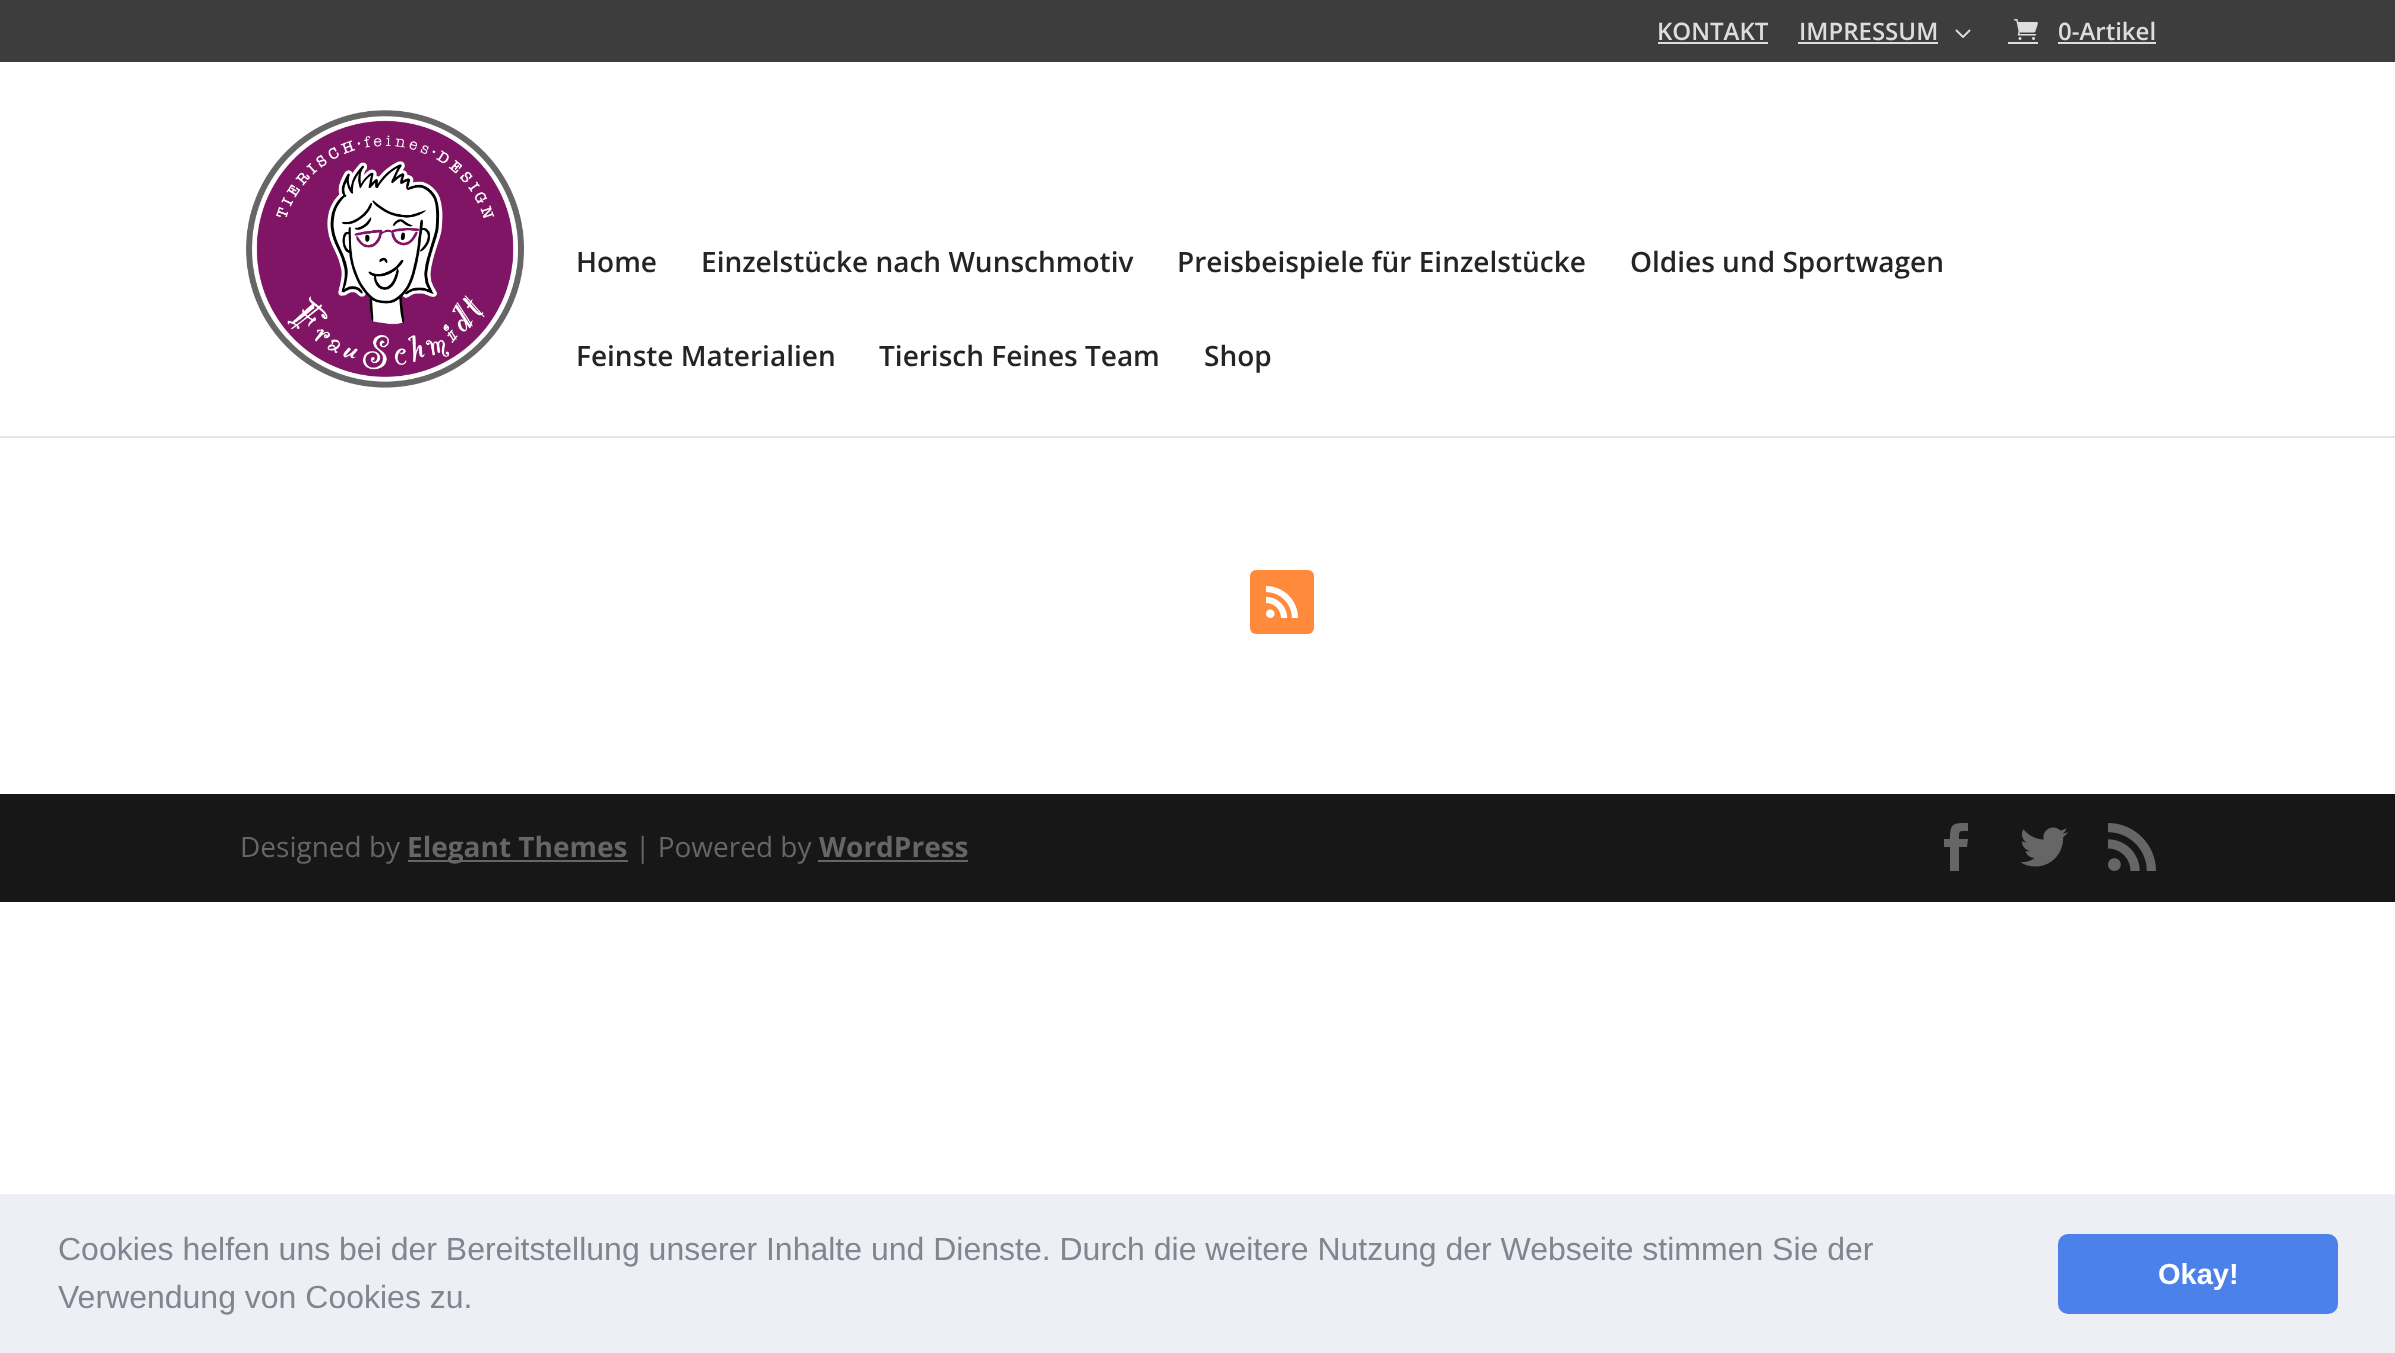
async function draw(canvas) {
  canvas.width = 2395
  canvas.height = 1353
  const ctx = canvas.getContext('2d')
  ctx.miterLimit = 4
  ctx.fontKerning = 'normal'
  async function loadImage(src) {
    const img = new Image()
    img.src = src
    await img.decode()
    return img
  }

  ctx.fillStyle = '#fff'
  ctx.fillRect(0, 0, 2395, 1353)
  ctx.fillStyle = '#3d3d3d'
  ctx.fillRect(0, 0, 2395, 62)
  ctx.font = '600 24px Open Sans'
  ctx.fillStyle = '#ddd'
  ctx.fillText('KONTAKT', 1657, 40)
  ctx.fillRect(1658, 42, 110, 2)
  ctx.fillText('IMPRESSUM', 1799, 40)
  ctx.fillRect(1798, 42, 140, 2)
  ctx.drawImage(await loadImage('image0.png'), 1955, 29, 16, 9)
  ctx.drawImage(await loadImage('image1.png'), 2014, 19, 24, 21)
  ctx.fillText('0-Artikel', 2058, 40)
  ctx.fillRect(2008, 42, 30, 2)
  ctx.fillRect(2058, 42, 98, 2)
  ctx.fillStyle = '#e6e6e6'
  ctx.fillRect(0, 436, 2395, 2)
  ctx.drawImage(await loadImage('image2.png'), 246, 110, 278, 278)
  ctx.font = '600 28px Open Sans'
  ctx.fillStyle = '#242424'
  ctx.fillText('Home', 576, 272)
  ctx.fillText('Einzelstücke nach Wunschmotiv', 701, 272)
  ctx.fillText('Preisbeispiele für Einzelstücke', 1177, 272)
  ctx.fillText('Oldies und Sportwagen', 1630, 272)
  ctx.fillText('Feinste Materialien', 576, 366)
  ctx.fillText('Tierisch Feines Team', 879, 366)
  ctx.fillText('Shop', 1204, 366)
  ctx.fillStyle = '#ff8a3c'
  ctx.beginPath()
  ctx.roundRect(1250, 570, 64, 64, 6)
  ctx.fill()
  ctx.drawImage(await loadImage('image3.png'), 1266, 586, 32, 32)
  ctx.fillStyle = '#171717'
  ctx.fillRect(0, 794, 2395, 108)
  ctx.font = '28px Open Sans'
  ctx.fillStyle = '#666'
  ctx.fillText('Designed by', 240, 857)
  ctx.fillRect(408, 860, 220, 2)
  ctx.font = 'bold 28px Open Sans'
  ctx.fillText('Elegant Themes', 407, 857)
  ctx.font = '28px Open Sans'
  ctx.fillText('| Powered by', 635, 857)
  ctx.font = 'bold 28px Open Sans'
  ctx.fillText('WordPress', 819, 857)
  ctx.fillRect(818, 860, 150, 2)
  ctx.beginPath()
  ctx.moveTo(1950, 871)
  ctx.lineTo(1959, 871)
  ctx.lineTo(1959, 847)
  ctx.lineTo(1967, 847)
  ctx.lineTo(1968, 839)
  ctx.lineTo(1959, 839)
  ctx.bezierCurveTo(1959, 830, 1959, 831, 1968, 831)
  ctx.lineTo(1968, 823)
  ctx.bezierCurveTo(1953, 823, 1950, 823, 1950, 839)
  ctx.lineTo(1944, 839)
  ctx.lineTo(1944, 847)
  ctx.lineTo(1950, 847)
  ctx.closePath()
  ctx.fill()
  ctx.drawImage(await loadImage('image4.png'), 2020, 827, 48, 40)
  ctx.drawImage(await loadImage('image5.png'), 2108, 823, 48, 48)
  ctx.fillStyle = '#edeff5'
  ctx.fillRect(0, 1194, 2395, 159)
  ctx.font = '32px Liberation Sans'
  ctx.fillStyle = '#838391'
  ctx.fillText('Cookies helfen uns bei der Bereitstellung unserer Inhalte und Dienste. Durch die weitere Nutzung der Webseite stimmen Sie der', 58, 1260)
  ctx.fillText('Verwendung von Cookies zu.', 58, 1308)
  ctx.fillStyle = '#4b81e8'
  ctx.beginPath()
  ctx.roundRect(2058, 1234, 280, 80, 10)
  ctx.fill()
  ctx.font = 'bold 29px Liberation Sans'
  ctx.fillStyle = '#fff'
  ctx.fillText('Okay!', 2158, 1284)
}

draw(document.querySelector('canvas'))
